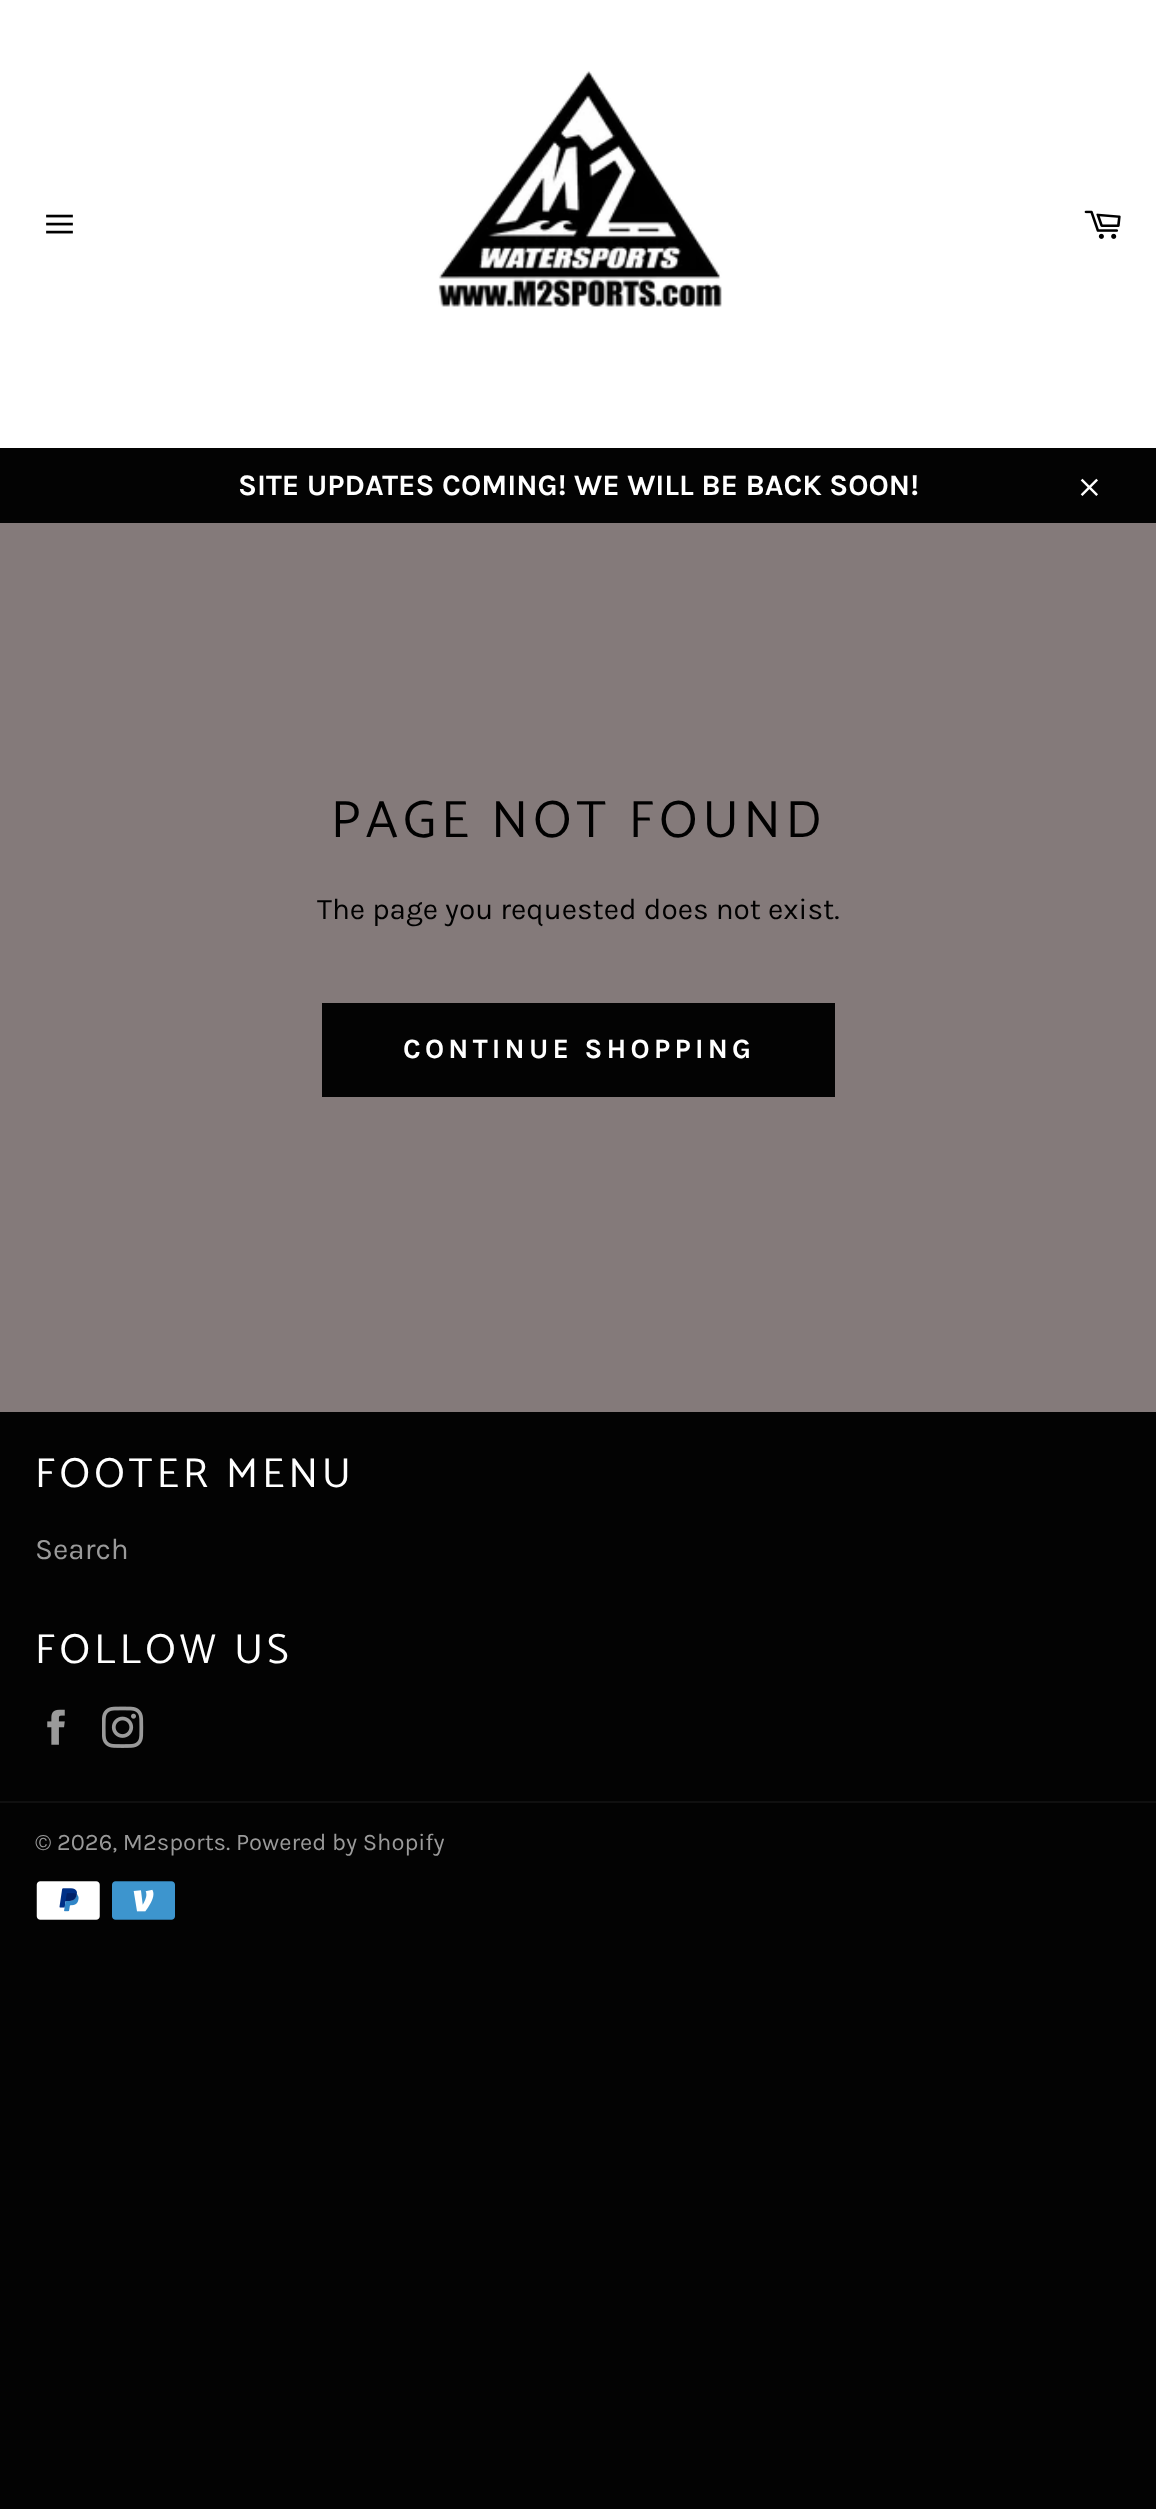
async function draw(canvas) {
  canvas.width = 1156
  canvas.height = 2509
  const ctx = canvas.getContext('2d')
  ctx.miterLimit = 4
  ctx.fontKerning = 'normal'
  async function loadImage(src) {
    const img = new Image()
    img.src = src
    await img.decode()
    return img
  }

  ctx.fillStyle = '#030303'
  ctx.fillRect(0, 0, 1156, 2509)
  ctx.fillStyle = '#847a7a'
  ctx.fillRect(0, 523, 1156, 889)
  ctx.fillStyle = '#fff'
  ctx.fillRect(0, 0, 1156, 448)
  ctx.drawImage(await loadImage('image0.png'), 46, 214, 27, 20)
  ctx.drawImage(await loadImage('image1.png'), 438, 71, 284, 236)
  ctx.drawImage(await loadImage('image2.png'), 1084, 210, 37, 29)
  ctx.font = 'bold 29.75px Karla'
  ctx.fillText('SITE UPDATES COMING! WE WILL BE BACK SOON!', 238, 495)
  ctx.drawImage(await loadImage('image3.png'), 1080, 478, 18, 18)
  ctx.letterSpacing = '5.25px'
  ctx.font = '52.5px Catamaran'
  ctx.fillStyle = '#000'
  ctx.fillText('PAGE NOT FOUND', 331, 837)
  ctx.letterSpacing = '0px'
  ctx.font = '29.75px Karla'
  ctx.fillText('The page you requested does not exist.', 317, 919)
  ctx.fillStyle = '#030303'
  ctx.fillRect(322, 1003, 513, 94)
  ctx.letterSpacing = '4.25px'
  ctx.font = 'bold 28px Karla'
  ctx.fillStyle = '#fff'
  ctx.fillText('CONTINUE SHOPPING', 403, 1058)
  ctx.font = '42px Catamaran'
  ctx.fillText('FOOTER MENU', 35, 1487)
  ctx.letterSpacing = '0px'
  ctx.font = '29.75px Karla'
  ctx.fillStyle = '#9a9a9a'
  ctx.fillText('Search', 35, 1559)
  ctx.letterSpacing = '4.25px'
  ctx.font = '42px Catamaran'
  ctx.fillStyle = '#fff'
  ctx.fillText('FOLLOW US', 35, 1663)
  ctx.drawImage(await loadImage('image4.png'), 47, 1709, 18, 36)
  ctx.drawImage(await loadImage('image5.png'), 102, 1706, 42, 42)
  ctx.fillStyle = '#101010'
  ctx.fillRect(0, 1801, 1156, 2)
  ctx.letterSpacing = '0px'
  ctx.font = '23.75px Karla'
  ctx.fillStyle = '#9a9a9a'
  ctx.fillText('© 2026, M2sports. Powered by Shopify', 35, 1850)
  ctx.drawImage(await loadImage('image6.png'), 36, 1881, 64, 39)
  ctx.drawImage(await loadImage('image7.png'), 112, 1881, 63, 39)
}

draw(document.querySelector('canvas'))
